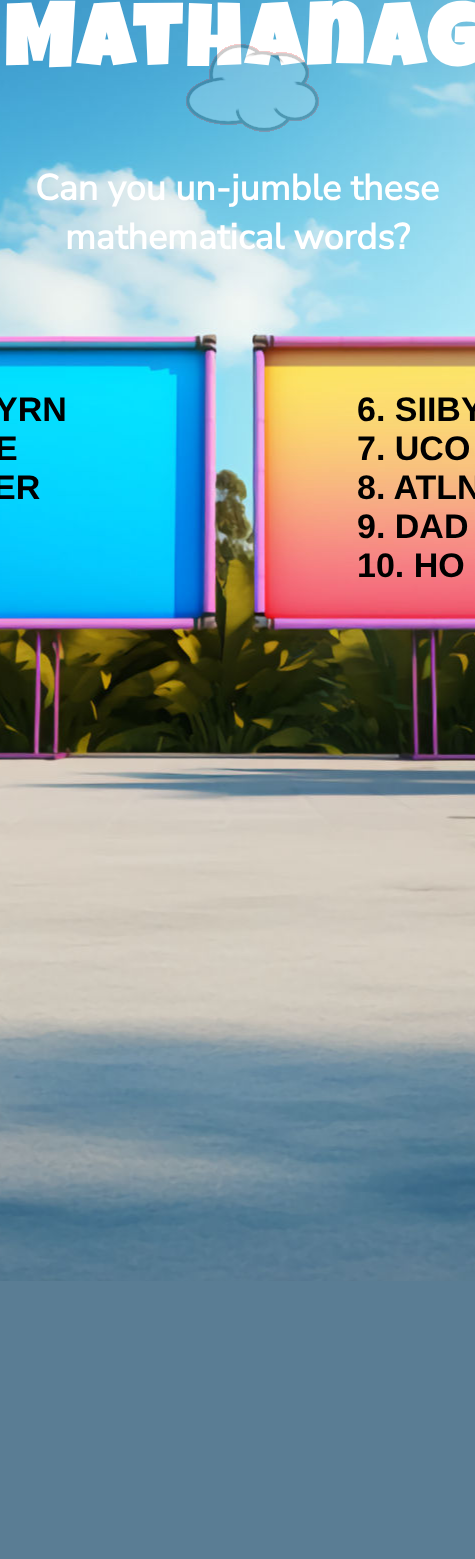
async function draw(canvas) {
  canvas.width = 475
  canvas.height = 1559
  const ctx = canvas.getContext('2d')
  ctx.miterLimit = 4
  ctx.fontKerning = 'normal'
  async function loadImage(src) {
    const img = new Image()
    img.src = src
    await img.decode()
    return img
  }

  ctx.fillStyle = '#5a7d94'
  ctx.fillRect(0, 0, 475, 1559)
  ctx.drawImage(await loadImage('image0.png'), 0, 0, 475, 1281)
  ctx.letterSpacing = '5px'
  ctx.font = 'bold 88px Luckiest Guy'
  ctx.fillStyle = '#fff'
  ctx.fillText('Mathanag', 4, 66)
  ctx.letterSpacing = '0px'
  ctx.font = 'bold 36px Nunito Sans'
  ctx.fillText('Can you un-jumble these', 35, 200)
  ctx.fillText('mathematical words?', 65, 249)
  ctx.font = 'bold 34px Liberation Sans'
  ctx.fillStyle = '#000'
  ctx.fillText('YRN', -5, 421)
  ctx.fillText('E', -5, 460)
  ctx.fillText('ER', -7, 499)
  ctx.fillText('6. SIIBY', 357, 421)
  ctx.fillText('7. UCO', 357, 460)
  ctx.fillText('8. ATLN', 357, 499)
  ctx.fillText('9. DAD', 357, 538)
  ctx.fillText('10. HO', 357, 577)
  ctx.drawImage(await loadImage('image1.png'), 186, 44, 133, 88)
}

draw(document.querySelector('canvas'))
